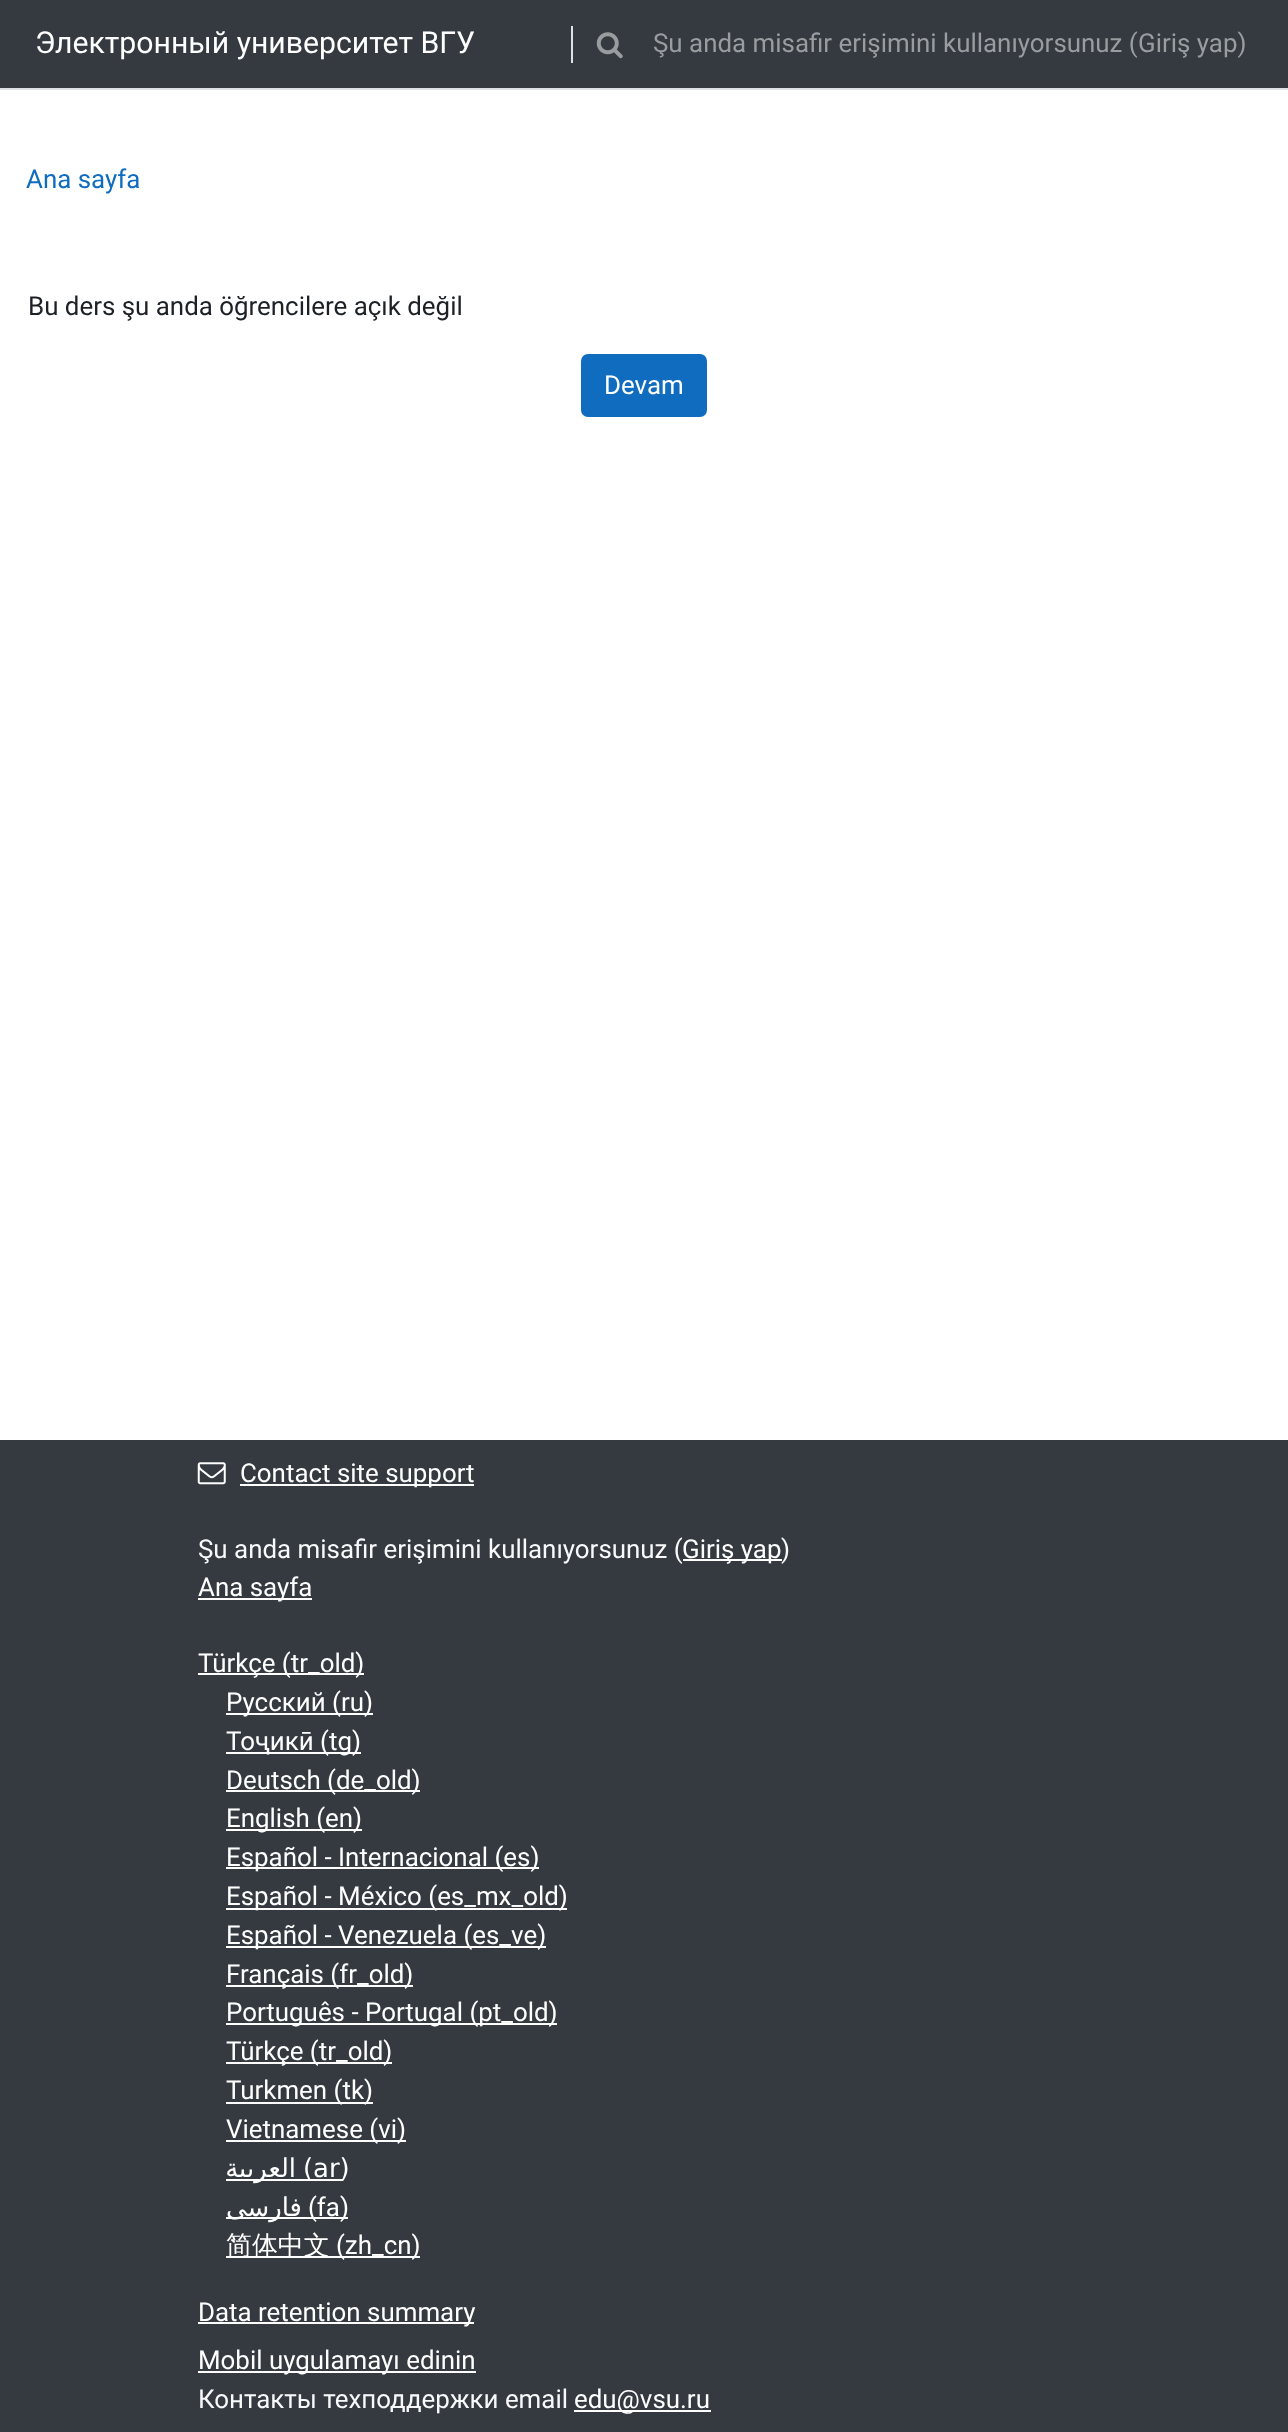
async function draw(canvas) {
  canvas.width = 1288
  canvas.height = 2432
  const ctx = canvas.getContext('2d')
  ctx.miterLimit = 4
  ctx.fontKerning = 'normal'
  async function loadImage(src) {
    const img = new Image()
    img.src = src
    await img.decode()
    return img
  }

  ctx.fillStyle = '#fff'
  ctx.fillRect(0, 0, 1288, 2432)
  ctx.fillStyle = '#343a40'
  ctx.fillRect(0, 0, 1288, 88)
  ctx.fillStyle = '#dee2e6'
  ctx.fillRect(0, 88, 1288, 2)
  ctx.font = '30.2px Roboto'
  ctx.fillStyle = '#fff'
  ctx.fillText('Электронный университет ВГУ', 35, 53)
  ctx.fillStyle = '#dee2e6'
  ctx.fillRect(571, 26, 2, 37)
  ctx.drawImage(await loadImage('image0.png'), 596, 32, 27, 27)
  ctx.font = '25.9px Roboto'
  ctx.fillStyle = '#9a9da0'
  ctx.fillText('Şu anda misafir erişimini kullanıyorsunuz (', 653, 52)
  ctx.fillText('Giriş yap)', 1138, 52)
  ctx.fillStyle = '#0f6cbf'
  ctx.fillText('Ana sayfa', 26, 188)
  ctx.fillStyle = '#1d2125'
  ctx.fillText('Bu ders şu anda öğrencilere açık değil', 28, 315)
  ctx.fillStyle = '#0f6cbf'
  ctx.beginPath()
  ctx.roundRect(582, 355, 124, 61, 6)
  ctx.fill()
  ctx.strokeStyle = '#0f6cbf'
  ctx.lineWidth = 2
  ctx.stroke()
  ctx.fillStyle = '#fff'
  ctx.fillText('Devam', 604, 394)
  ctx.fillStyle = '#343a40'
  ctx.fillRect(0, 1440, 1288, 992)
  ctx.drawImage(await loadImage('image1.png'), 197, 1462, 29, 23)
  ctx.fillStyle = '#fff'
  ctx.fillRect(240, 1484, 234, 2)
  ctx.fillText('Contact site support', 240, 1482)
  ctx.fillStyle = '#f8f9fa'
  ctx.fillText('Şu anda misafir erişimini kullanıyorsunuz (', 198, 1558)
  ctx.fillStyle = '#fff'
  ctx.fillRect(683, 1559, 99, 2)
  ctx.fillText('Giriş yap', 682, 1558)
  ctx.fillStyle = '#f8f9fa'
  ctx.fillText(')', 781, 1558)
  ctx.fillStyle = '#fff'
  ctx.fillRect(198, 1598, 114, 2)
  ctx.fillText('Ana sayfa', 198, 1596)
  ctx.fillRect(198, 1673, 166, 2)
  ctx.fillText('Türkçe (tr_old)', 198, 1672)
  ctx.fillRect(226, 1713, 147, 2)
  ctx.fillText('Русский (ru)', 226, 1711)
  ctx.fillRect(226, 1752, 135, 2)
  ctx.fillText('Тоҷикӣ (tg)', 226, 1750)
  ctx.fillRect(226, 1790, 194, 2)
  ctx.fillText('Deutsch (de_old)', 226, 1789)
  ctx.fillRect(226, 1829, 136, 2)
  ctx.fillText('English (en)', 226, 1827)
  ctx.fillRect(226, 1867, 313, 2)
  ctx.fillText('Español - Internacional (es)', 226, 1866)
  ctx.fillRect(226, 1908, 341, 2)
  ctx.fillText('Español - México (es_mx_old)', 226, 1905)
  ctx.fillRect(226, 1946, 320, 2)
  ctx.fillText('Español - Venezuela (es_ve)', 226, 1944)
  ctx.fillRect(226, 1985, 187, 2)
  ctx.fillText('Français (fr_old)', 226, 1983)
  ctx.fillRect(226, 2023, 331, 2)
  ctx.fillText('Português - Portugal (pt_old)', 226, 2021)
  ctx.fillRect(226, 2062, 166, 2)
  ctx.fillText('Türkçe (tr_old)', 226, 2060)
  ctx.fillRect(226, 2102, 147, 2)
  ctx.fillText('Turkmen (tk)', 226, 2099)
  ctx.fillRect(226, 2140, 180, 2)
  ctx.fillText('Vietnamese (vi)', 226, 2138)
  ctx.fillRect(226, 2179, 117, 2)
  ctx.direction = 'rtl'
  ctx.font = '25.9px DejaVu Sans'
  ctx.fillText('العربية', 296, 2177)
  ctx.direction = 'ltr'
  ctx.fillText('(ar)', 303, 2177)
  ctx.fillRect(226, 2217, 122, 2)
  ctx.direction = 'rtl'
  ctx.fillText('فارسی', 302, 2216)
  ctx.direction = 'ltr'
  ctx.font = '25.9px Roboto'
  ctx.fillText('(fa)', 308, 2216)
  ctx.fillRect(226, 2256, 194, 2)
  ctx.font = '500 25.9px WenQuanYi Zen Hei'
  ctx.fillText('简体中文', 226, 2254)
  ctx.font = '25.9px Roboto'
  ctx.fillText('(zh_cn)', 336, 2254)
  ctx.fillRect(198, 2322, 276, 2)
  ctx.fillText('Data retention summary', 198, 2321)
  ctx.fillRect(198, 2371, 278, 2)
  ctx.fillText('Mobil uygulamayı edinin', 198, 2369)
  ctx.fillStyle = '#f8f9fa'
  ctx.fillText('Контакты техподдержки email', 198, 2408)
  ctx.fillStyle = '#fff'
  ctx.fillRect(574, 2410, 137, 2)
  ctx.fillText('edu@vsu.ru', 574, 2408)
}

draw(document.querySelector('canvas'))
